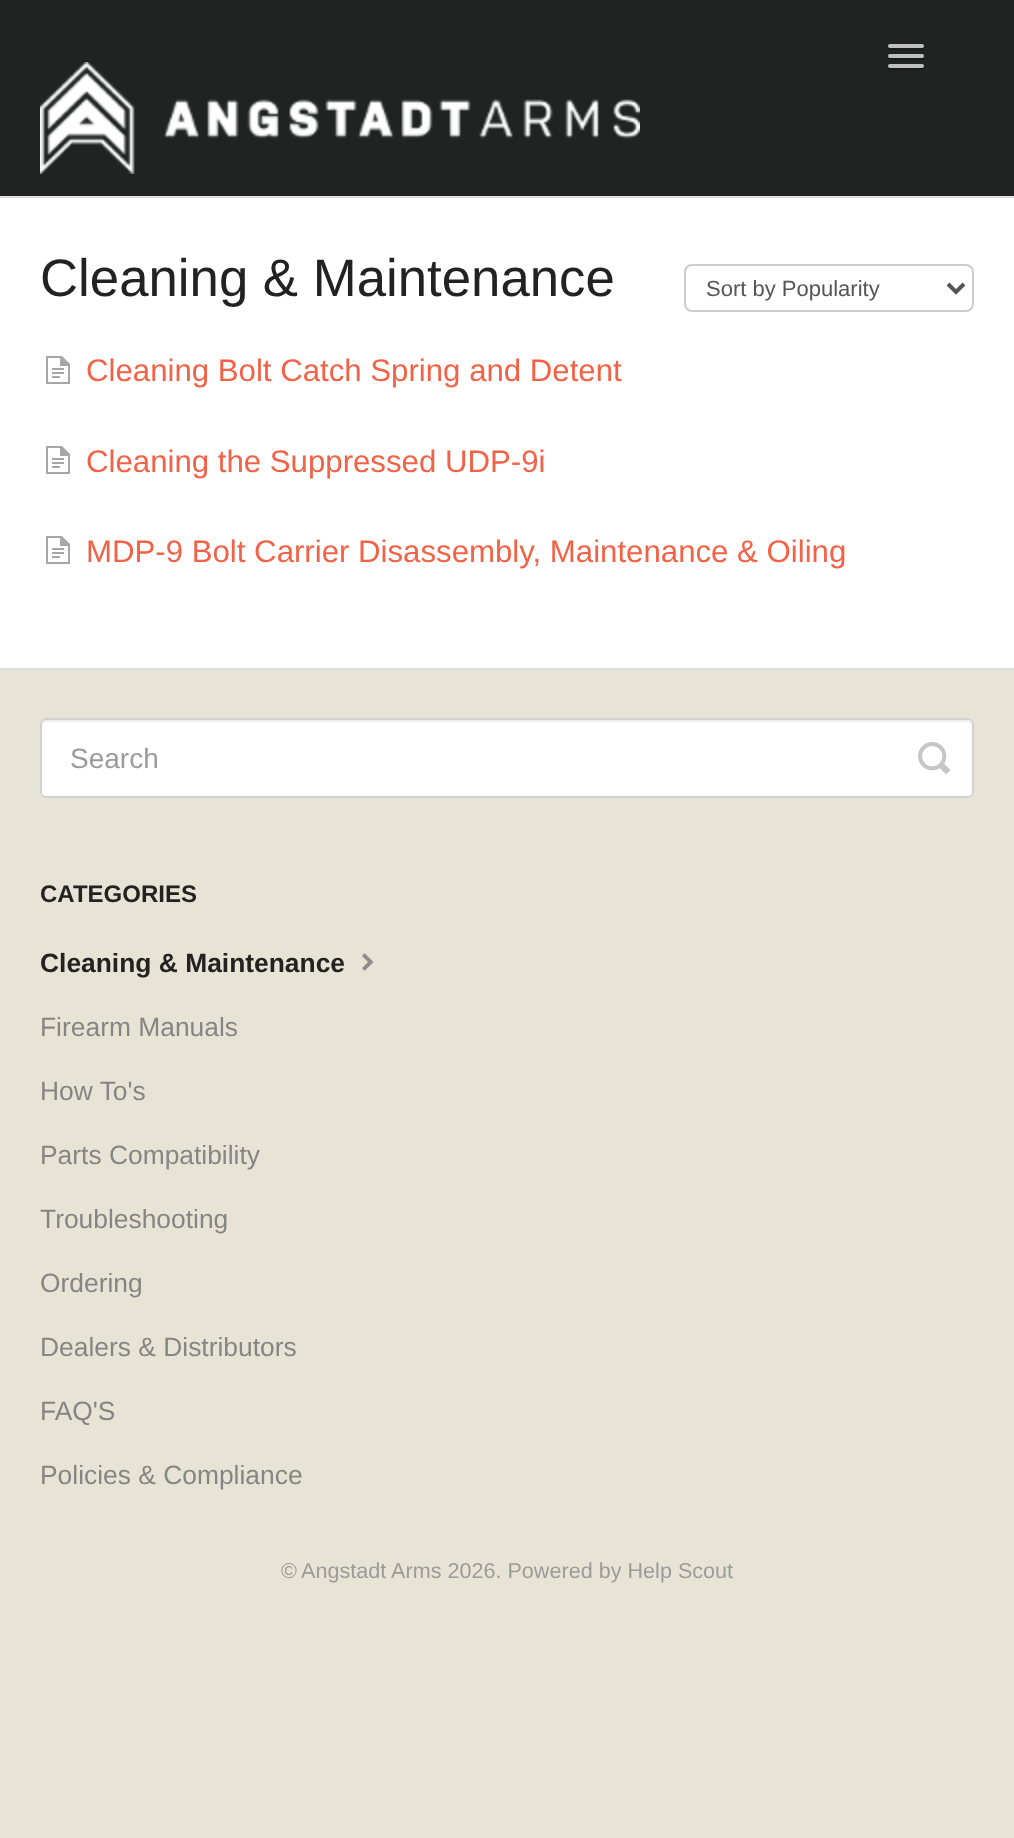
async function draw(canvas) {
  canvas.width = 1014
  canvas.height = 1838
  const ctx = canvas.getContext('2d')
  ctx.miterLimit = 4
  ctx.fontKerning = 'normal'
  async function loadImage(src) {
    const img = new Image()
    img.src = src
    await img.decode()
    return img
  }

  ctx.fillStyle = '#e8e4d5'
  ctx.fillRect(0, 0, 1014, 1838)
  ctx.fillStyle = '#212322'
  ctx.fillRect(0, 0, 1014, 196)
  ctx.fillStyle = '#191a1a'
  ctx.beginPath()
  ctx.moveTo(888.5, 47)
  ctx.bezierCurveTo(886, 51, 895, 50, 895.5, 50)
  ctx.lineTo(916.5, 50)
  ctx.bezierCurveTo(917, 50, 926, 51, 923.5, 47)
  ctx.bezierCurveTo(923.5, 47.5, 922.5, 48, 922, 48)
  ctx.lineTo(890, 48)
  ctx.bezierCurveTo(889.5, 48, 888.5, 47.5, 888.5, 47)
  ctx.closePath()
  ctx.fill()
  ctx.fillStyle = '#c0c0c0'
  ctx.beginPath()
  ctx.roundRect(888, 44, 36, 4, 2)
  ctx.fill()
  ctx.fillStyle = '#191a1a'
  ctx.beginPath()
  ctx.moveTo(888.5, 57)
  ctx.bezierCurveTo(886, 61, 895, 60, 895.5, 60)
  ctx.lineTo(916.5, 60)
  ctx.bezierCurveTo(917, 60, 926, 61, 923.5, 57)
  ctx.bezierCurveTo(923.5, 57.5, 922.5, 58, 922, 58)
  ctx.lineTo(890, 58)
  ctx.bezierCurveTo(889.5, 58, 888.5, 57.5, 888.5, 57)
  ctx.closePath()
  ctx.fill()
  ctx.fillStyle = '#c0c0c0'
  ctx.beginPath()
  ctx.roundRect(888, 54, 36, 4, 2)
  ctx.fill()
  ctx.fillStyle = '#191a1a'
  ctx.beginPath()
  ctx.moveTo(888.5, 67)
  ctx.bezierCurveTo(886, 71, 895, 70, 895.5, 70)
  ctx.lineTo(916.5, 70)
  ctx.bezierCurveTo(917, 70, 926, 71, 923.5, 67)
  ctx.bezierCurveTo(923.5, 67.5, 922.5, 68, 922, 68)
  ctx.lineTo(890, 68)
  ctx.bezierCurveTo(889.5, 68, 888.5, 67.5, 888.5, 67)
  ctx.closePath()
  ctx.fill()
  ctx.fillStyle = '#c0c0c0'
  ctx.beginPath()
  ctx.roundRect(888, 64, 36, 4, 2)
  ctx.fill()
  ctx.drawImage(await loadImage('image0.png'), 40, 62, 600, 112)
  ctx.fillStyle = '#fff'
  ctx.fillRect(0, 198, 1014, 470)
  ctx.fillStyle = '#dedede'
  ctx.fillRect(0, 196, 1014, 2)
  ctx.fillRect(0, 668, 1014, 2)
  ctx.font = '52.75px Liberation Sans'
  ctx.fillStyle = '#222'
  ctx.fillText('Cleaning & Maintenance', 40, 296)
  ctx.beginPath()
  ctx.roundRect(685, 265, 288, 46, 7)
  ctx.strokeStyle = '#ccc'
  ctx.lineWidth = 2
  ctx.stroke()
  ctx.beginPath()
  ctx.moveTo(948, 284)
  ctx.lineTo(956, 292)
  ctx.lineTo(964, 284)
  ctx.strokeStyle = '#555'
  ctx.lineWidth = 4
  ctx.stroke()
  ctx.font = '22px Liberation Sans'
  ctx.fillStyle = '#555'
  ctx.fillText('Sort by Popularity', 706, 296)
  ctx.drawImage(await loadImage('image1.png'), 46, 356, 24, 28)
  ctx.font = '31.2px Liberation Sans'
  ctx.fillStyle = '#f26247'
  ctx.fillText('Cleaning Bolt Catch Spring and Detent', 86, 381)
  ctx.drawImage(await loadImage('image1.png'), 46, 446, 24, 28)
  ctx.fillText('Cleaning the Suppressed UDP-9i', 86, 472)
  ctx.drawImage(await loadImage('image1.png'), 46, 536, 24, 28)
  ctx.fillText('MDP-9 Bolt Carrier Disassembly, Maintenance & Oiling', 86, 562)
  ctx.fillStyle = '#fff'
  ctx.beginPath()
  ctx.roundRect(40, 718, 934, 80, 6)
  ctx.fill()
  ctx.fillStyle = '#ececec'
  ctx.beginPath()
  ctx.moveTo(46, 722)
  ctx.lineTo(968, 722)
  ctx.bezierCurveTo(970, 722, 972, 724, 972, 726)
  ctx.lineTo(972, 724)
  ctx.bezierCurveTo(972, 722, 970, 720, 968, 720)
  ctx.lineTo(46, 720)
  ctx.bezierCurveTo(44, 720, 42, 722, 42, 724)
  ctx.lineTo(42, 726)
  ctx.bezierCurveTo(42, 724, 44, 722, 46, 722)
  ctx.closePath()
  ctx.fill()
  ctx.beginPath()
  ctx.roundRect(41, 719, 932, 78, 5)
  ctx.strokeStyle = '#d0d0d0'
  ctx.lineWidth = 2
  ctx.stroke()
  ctx.font = '28px Liberation Sans'
  ctx.fillStyle = '#9b9b9b'
  ctx.fillText('Search', 70, 768)
  ctx.drawImage(await loadImage('image2.png'), 918, 742, 32, 32)
  ctx.font = 'bold 24px Liberation Sans'
  ctx.fillStyle = '#222'
  ctx.fillText('CATEGORIES', 40, 902)
  ctx.font = 'bold 26.4px Liberation Sans'
  ctx.fillText('Cleaning & Maintenance', 40, 972)
  ctx.fillStyle = '#8d8d8d'
  ctx.beginPath()
  ctx.moveTo(364.5, 953)
  ctx.lineTo(362, 956)
  ctx.lineTo(368, 962)
  ctx.lineTo(362, 968)
  ctx.lineTo(364.5, 971)
  ctx.lineTo(373.5, 962)
  ctx.closePath()
  ctx.fill()
  ctx.font = '26.4px Liberation Sans'
  ctx.fillStyle = '#858585'
  ctx.fillText('Firearm Manuals', 40, 1036)
  ctx.fillText('How To\'s', 40, 1100)
  ctx.fillText('Parts Compatibility', 40, 1164)
  ctx.fillText('Troubleshooting', 40, 1228)
  ctx.fillText('Ordering', 40, 1292)
  ctx.fillText('Dealers & Distributors', 40, 1356)
  ctx.fillText('FAQ\'S', 40, 1420)
  ctx.fillText('Policies & Compliance', 40, 1484)
  ctx.font = '21.6px Liberation Sans'
  ctx.fillStyle = '#9b9b9b'
  ctx.fillText('©', 281, 1578)
  ctx.fillText('Angstadt Arms 2026. Powered by Help Scout', 301, 1578)
}

draw(document.querySelector('canvas'))
